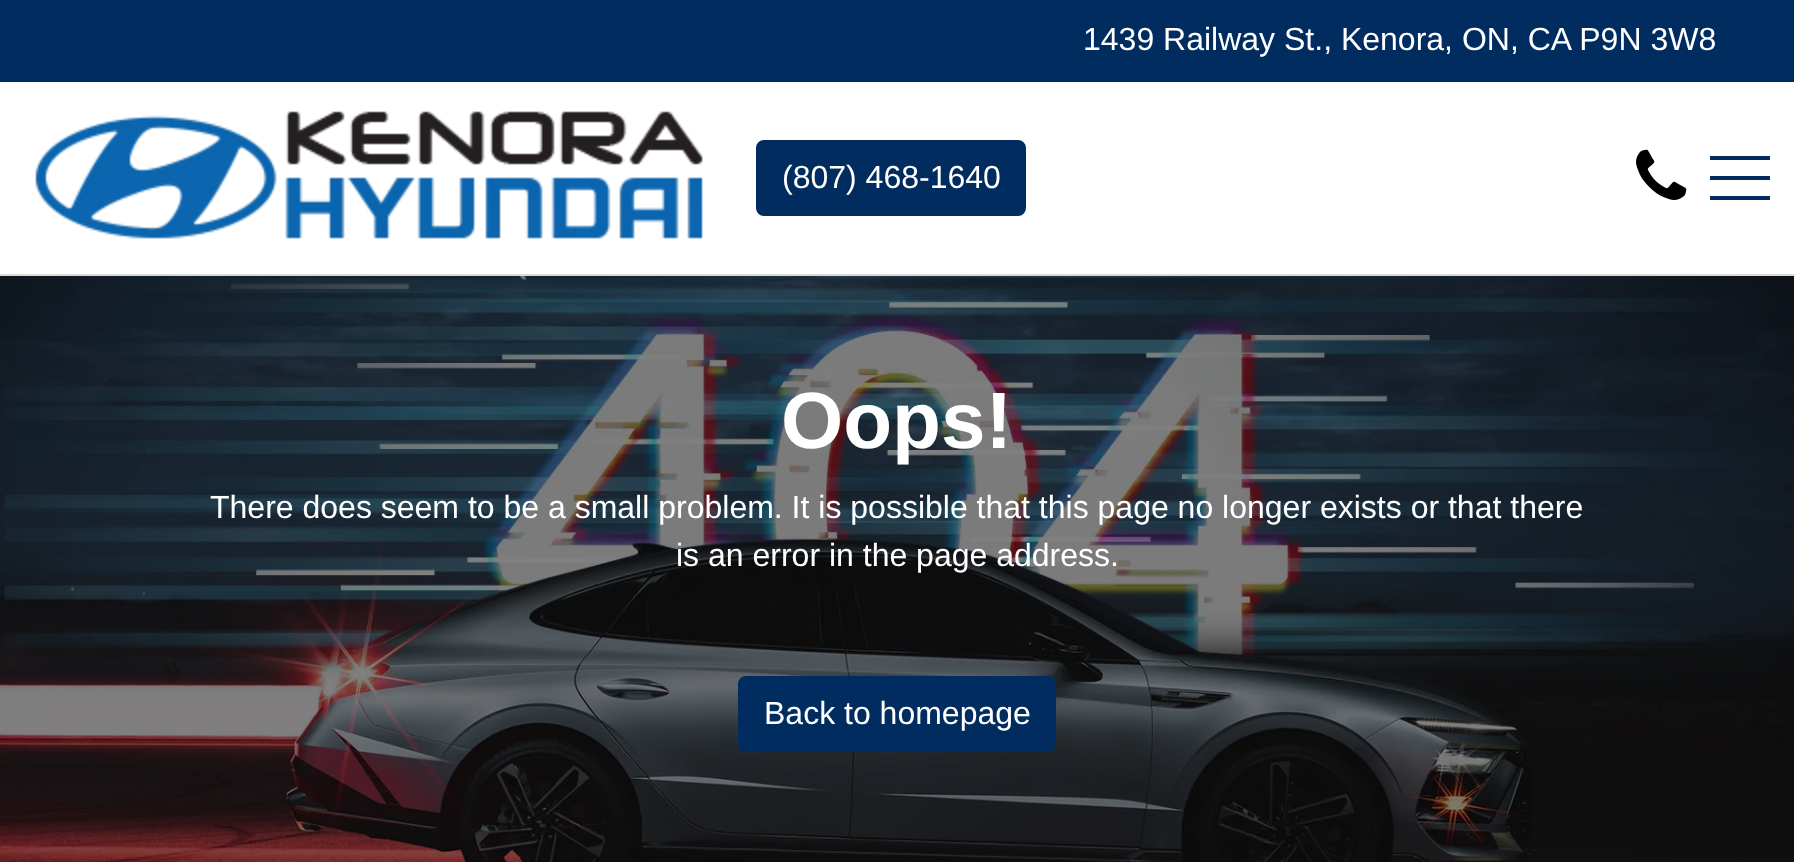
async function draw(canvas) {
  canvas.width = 1794
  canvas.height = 862
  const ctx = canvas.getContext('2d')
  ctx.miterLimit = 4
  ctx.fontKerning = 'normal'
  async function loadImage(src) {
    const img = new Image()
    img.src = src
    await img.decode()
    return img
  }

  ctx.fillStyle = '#fff'
  ctx.fillRect(0, 0, 1794, 862)
  ctx.fillStyle = '#002c5f'
  ctx.fillRect(0, 0, 1794, 82)
  ctx.font = '32px Liberation Sans'
  ctx.fillStyle = '#fff'
  ctx.fillText('1439 Railway St., Kenora, ON, CA P9N 3W8', 1083, 50)
  ctx.fillStyle = '#dadada'
  ctx.fillRect(0, 274, 1794, 2)
  ctx.drawImage(await loadImage('image0.png'), 35, 111, 669, 128)
  ctx.fillStyle = '#002c5f'
  ctx.beginPath()
  ctx.roundRect(757, 141, 268, 74, 7)
  ctx.fill()
  ctx.strokeStyle = '#002c5f'
  ctx.lineWidth = 2
  ctx.stroke()
  ctx.fillStyle = '#fff'
  ctx.fillText('(807) 468-1640', 782, 188)
  ctx.drawImage(await loadImage('image1.png'), 1636, 149, 51, 51)
  ctx.fillStyle = '#002c5f'
  ctx.fillRect(1710, 156, 60, 4)
  ctx.fillRect(1710, 176, 60, 4)
  ctx.fillRect(1710, 196, 60, 4)
  ctx.drawImage(await loadImage('image2.png'), 0, 276, 1794, 586)
  ctx.font = 'bold 80px Liberation Sans'
  ctx.fillStyle = '#fff'
  ctx.fillText('Oops!', 781, 448)
  ctx.font = '32px Liberation Sans'
  ctx.fillText('There does seem to be a small problem. It is possible that this page no longer exists or that there', 210, 518)
  ctx.fillText('is an error in the page address.', 676, 566)
  ctx.fillStyle = '#002c5f'
  ctx.beginPath()
  ctx.roundRect(739, 677, 316, 74, 7)
  ctx.fill()
  ctx.stroke()
  ctx.fillStyle = '#fff'
  ctx.fillText('Back to homepage', 764, 724)
}

draw(document.querySelector('canvas'))
